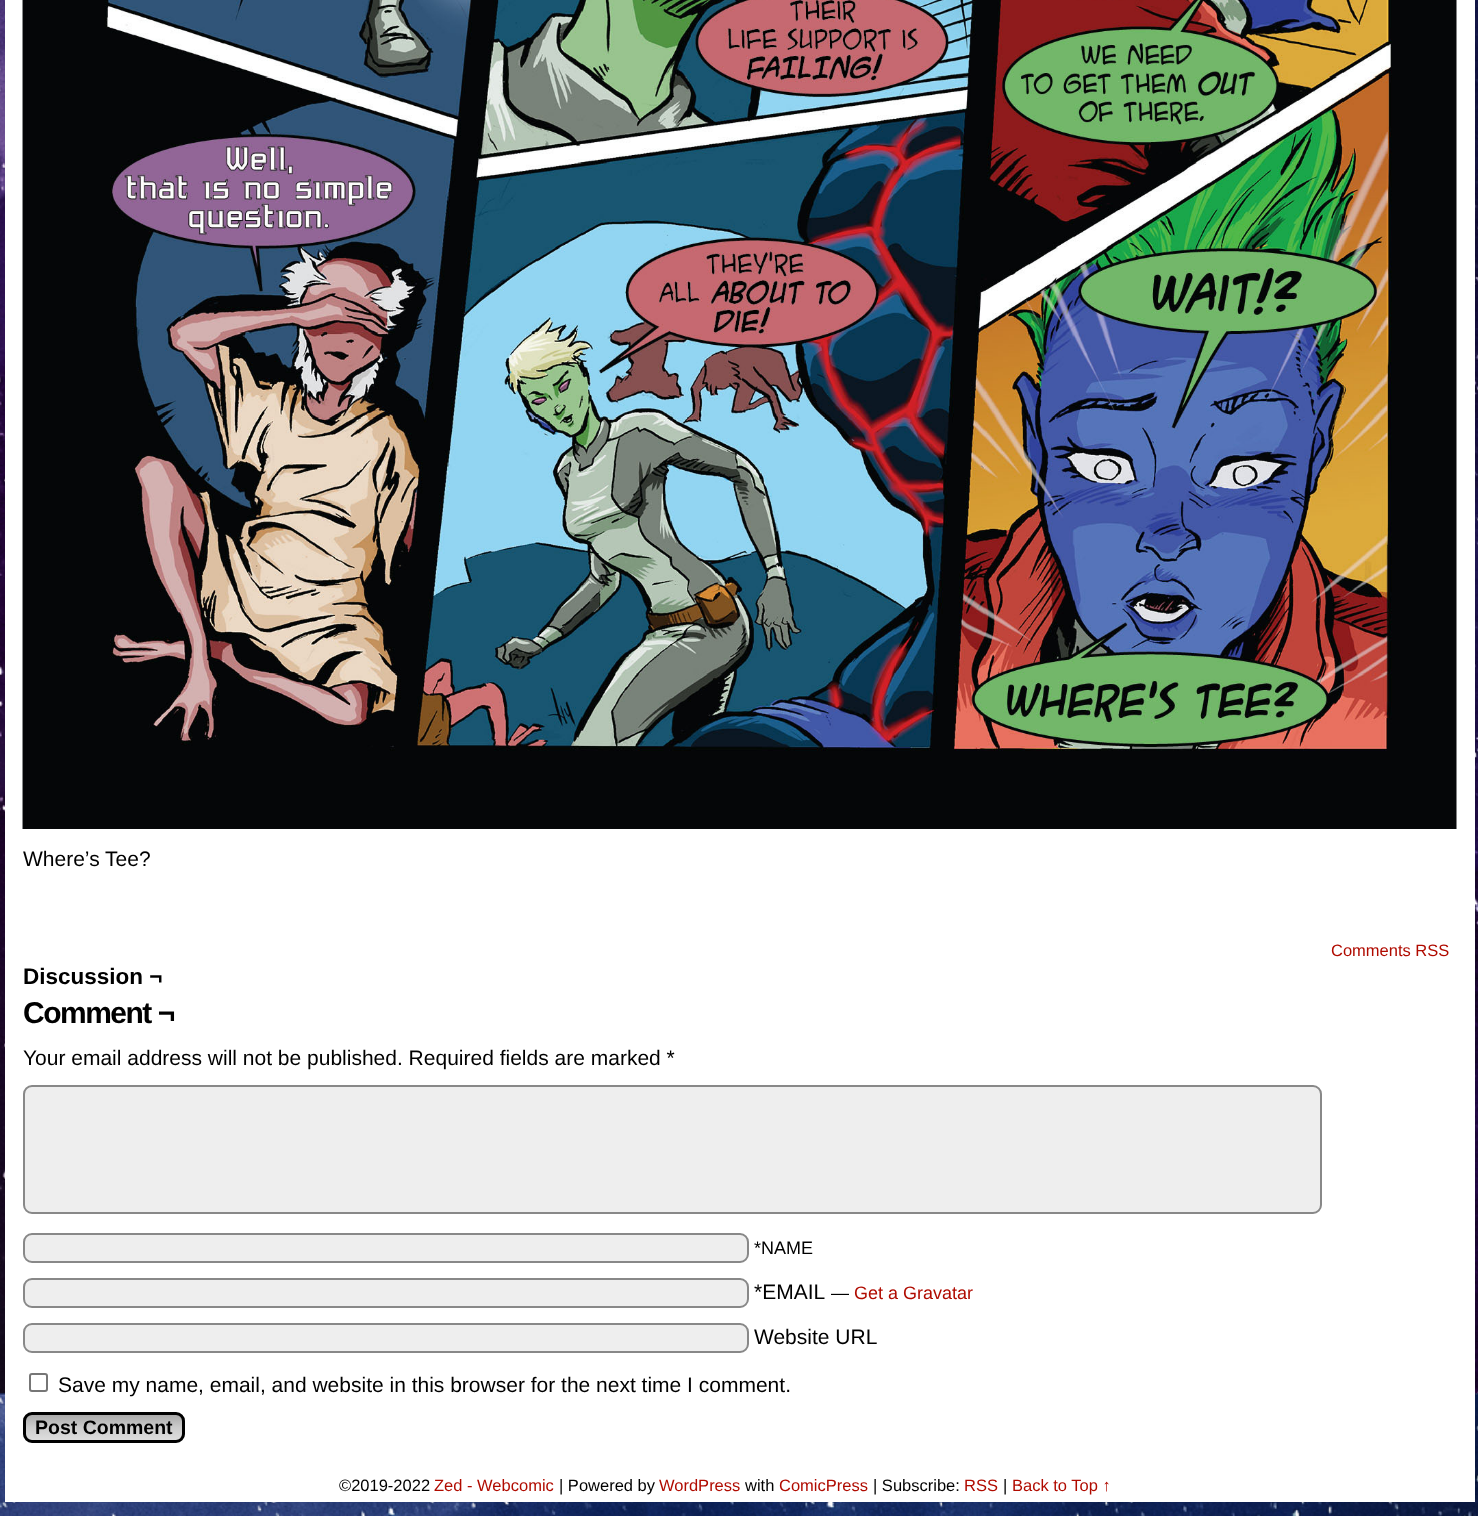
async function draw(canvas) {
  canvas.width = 1478
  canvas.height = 1516
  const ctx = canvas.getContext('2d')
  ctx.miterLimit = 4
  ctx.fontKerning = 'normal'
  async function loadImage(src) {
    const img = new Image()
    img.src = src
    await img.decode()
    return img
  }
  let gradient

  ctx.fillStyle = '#fff'
  ctx.fillRect(0, 0, 1478, 1516)
  ctx.drawImage(await loadImage('image0.png'), 0, 0, 1478, 1516)
  ctx.fillRect(5, 0, 1470, 1502)
  ctx.drawImage(await loadImage('image1.png'), 22, 0, 1435, 829)
  ctx.font = '21px Liberation Sans'
  ctx.fillStyle = '#000'
  ctx.fillText('Where’s Tee?', 23, 866)
  ctx.font = '16.5px Liberation Sans'
  ctx.fillStyle = '#b00b00'
  ctx.fillText('Comments RSS', 1331, 956)
  ctx.font = 'bold 22.5px Liberation Sans'
  ctx.fillStyle = '#000'
  ctx.fillText('Discussion ¬', 23, 984)
  ctx.letterSpacing = '-1.5px'
  ctx.font = 'bold 30px Liberation Sans'
  ctx.fillText('Comment ¬', 23, 1023)
  ctx.letterSpacing = '0px'
  ctx.font = '21px Liberation Sans'
  ctx.fillText('Your email address will not be published. Required fields are marked *', 23, 1065)
  ctx.fillStyle = '#eee'
  ctx.beginPath()
  ctx.roundRect(24, 1086, 1297, 127, 8)
  ctx.fill()
  ctx.strokeStyle = '#888'
  ctx.lineWidth = 2
  ctx.stroke()
  ctx.beginPath()
  ctx.roundRect(24, 1234, 724, 28, 8)
  ctx.fill()
  ctx.stroke()
  ctx.font = '18px Liberation Sans'
  ctx.fillStyle = '#000'
  ctx.fillText('*NAME', 754, 1254)
  ctx.fillStyle = '#eee'
  ctx.beginPath()
  ctx.roundRect(24, 1279, 724, 28, 8)
  ctx.fill()
  ctx.stroke()
  ctx.font = '21px Liberation Sans'
  ctx.fillStyle = '#000'
  ctx.fillText('*EMAIL', 754, 1299)
  ctx.font = '18px Liberation Sans'
  ctx.fillText('—', 831, 1299)
  ctx.fillStyle = '#b00b00'
  ctx.fillText('Get a Gravatar', 854, 1299)
  ctx.fillStyle = '#eee'
  ctx.beginPath()
  ctx.roundRect(24, 1324, 724, 28, 8)
  ctx.fill()
  ctx.stroke()
  ctx.font = '21px Liberation Sans'
  ctx.fillStyle = '#000'
  ctx.fillText('Website URL', 754, 1344)
  ctx.beginPath()
  ctx.roundRect(30, 1374, 17, 17, 2)
  ctx.strokeStyle = '#767676'
  ctx.stroke()
  ctx.fillText('Save my name, email, and website in this browser for the next time I comment.', 58, 1392)
  ctx.save()
  ctx.beginPath()
  ctx.roundRect(23, 1412, 162, 31, 9)
  ctx.clip()
  gradient = ctx.createLinearGradient(104, 1415, 104, 1440)
  gradient.addColorStop(0, '#aaa')
  gradient.addColorStop(0.5, '#ccc')
  gradient.addColorStop(1, '#ddd')
  ctx.fillStyle = gradient
  ctx.fillRect(23, 1415, 162, 25)
  ctx.restore()
  ctx.beginPath()
  ctx.roundRect(24.5, 1413.5, 159, 28, 7.5)
  ctx.strokeStyle = '#000'
  ctx.lineWidth = 3
  ctx.stroke()
  ctx.font = 'bold 19.5px Liberation Sans'
  ctx.fillText('Post Comment', 35, 1434)
  ctx.font = '16.5px Liberation Sans'
  ctx.fillText('©2019-2022', 339, 1491)
  ctx.fillStyle = '#b00b00'
  ctx.fillText('Zed - Webcomic', 434, 1491)
  ctx.fillStyle = '#000'
  ctx.fillText('| Powered by', 559, 1491)
  ctx.fillStyle = '#b00b00'
  ctx.fillText('WordPress', 659, 1491)
  ctx.fillStyle = '#000'
  ctx.fillText('with', 745, 1491)
  ctx.fillStyle = '#b00b00'
  ctx.fillText('ComicPress', 779, 1491)
  ctx.fillStyle = '#000'
  ctx.fillText('| Subscribe:', 873, 1491)
  ctx.fillStyle = '#b00b00'
  ctx.fillText('RSS', 964, 1491)
  ctx.fillStyle = '#000'
  ctx.fillText('|', 1003, 1491)
  ctx.fillStyle = '#b00b00'
  ctx.fillText('Back to Top ↑', 1012, 1491)
}

draw(document.querySelector('canvas'))
